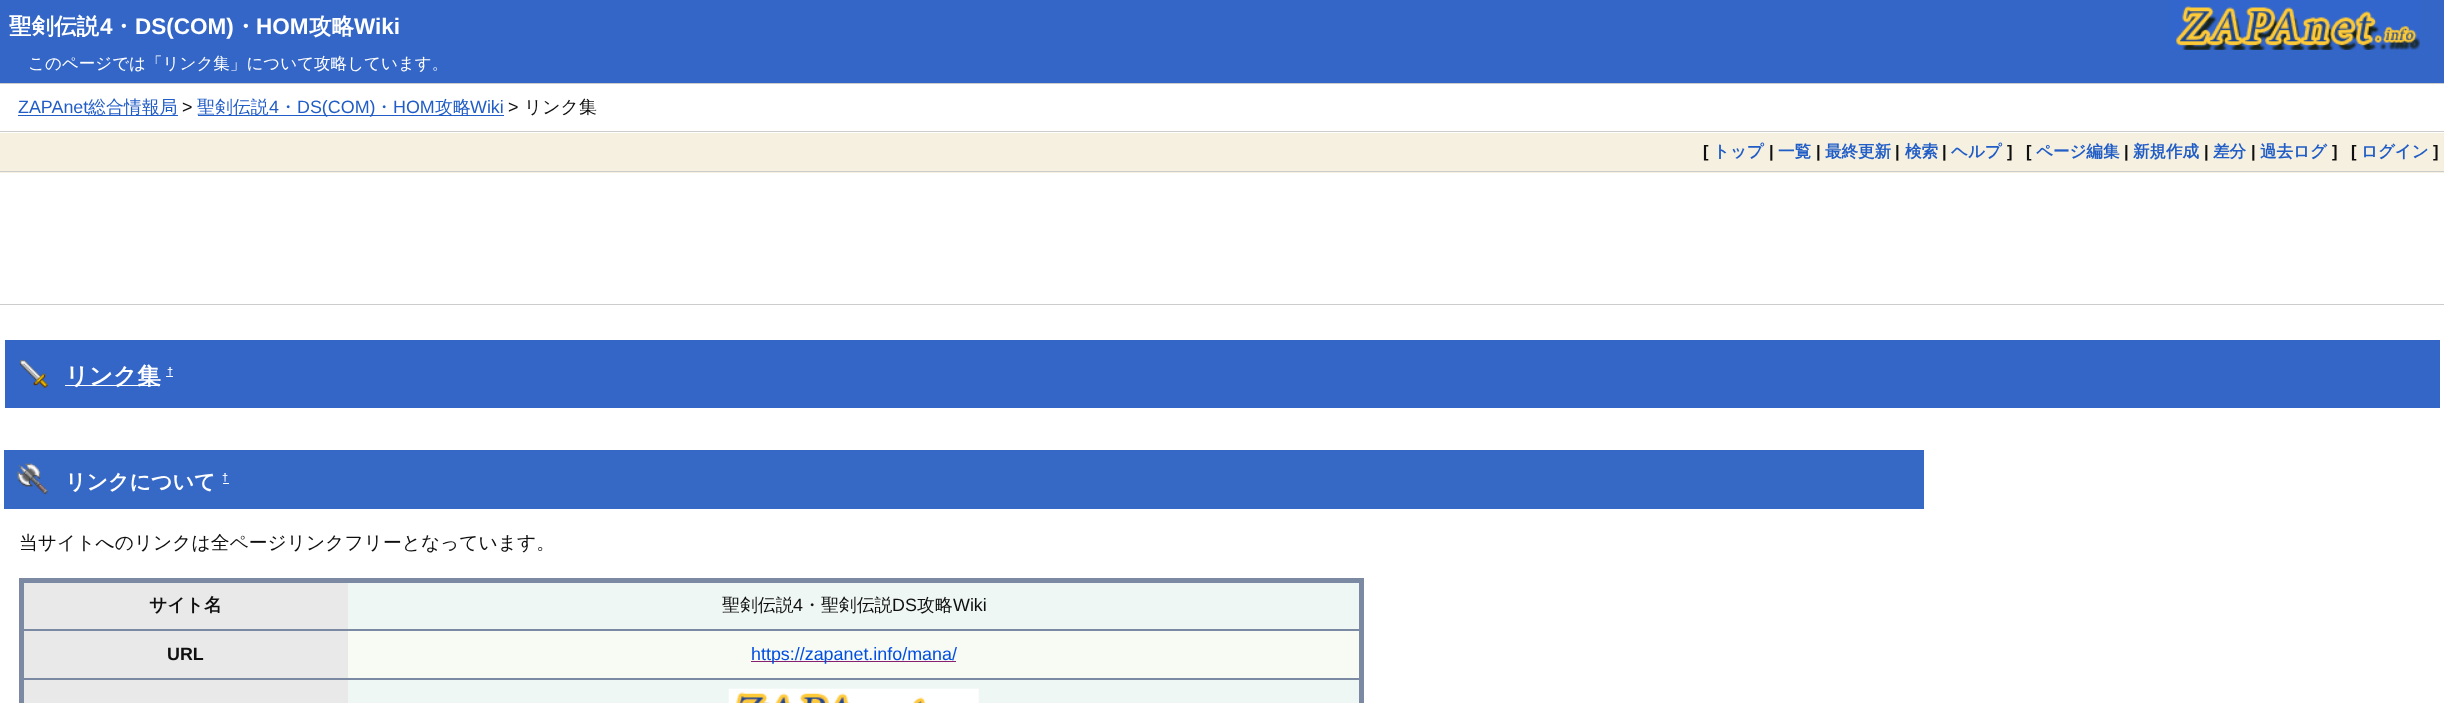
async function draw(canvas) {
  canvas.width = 2444
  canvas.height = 703
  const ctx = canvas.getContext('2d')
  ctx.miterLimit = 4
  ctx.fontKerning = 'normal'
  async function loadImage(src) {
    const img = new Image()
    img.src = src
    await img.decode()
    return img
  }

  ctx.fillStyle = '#fff'
  ctx.fillRect(0, 0, 2444, 703)
  ctx.fillStyle = '#3366c6'
  ctx.fillRect(0, 0, 2444, 83)
  ctx.font = 'bold 22.5px WenQuanYi Zen Hei'
  ctx.fillStyle = '#fff'
  ctx.fillText('聖剣伝説', 9, 34)
  ctx.font = 'bold 22.5px Liberation Sans'
  ctx.fillText('4', 100, 34)
  ctx.font = 'bold 22.5px WenQuanYi Zen Hei'
  ctx.fillText('・', 112, 34)
  ctx.font = 'bold 22.5px Liberation Sans'
  ctx.fillText('DS(COM)', 135, 34)
  ctx.font = 'bold 22.5px WenQuanYi Zen Hei'
  ctx.fillText('・', 234, 34)
  ctx.font = 'bold 22.5px Liberation Sans'
  ctx.fillText('HOM', 256, 34)
  ctx.font = 'bold 22.5px WenQuanYi Zen Hei'
  ctx.fillText('攻略', 309, 34)
  ctx.font = 'bold 22.5px Liberation Sans'
  ctx.fillText('Wiki', 354, 34)
  ctx.drawImage(await loadImage('image0.png'), 2170, 0, 250, 50)
  ctx.font = '500 16.55px WenQuanYi Zen Hei'
  ctx.fillText('このページでは「リンク集」について攻略しています。', 28, 69)
  ctx.fillStyle = '#ccc'
  ctx.fillRect(0, 83, 2444, 1)
  ctx.fillRect(0, 131, 2444, 1)
  ctx.font = '17.9px Liberation Sans'
  ctx.fillStyle = '#215dc6'
  ctx.fillText('ZAPAnet', 18, 113)
  ctx.fillRect(18, 115, 160, 1)
  ctx.font = '500 17.9px WenQuanYi Zen Hei'
  ctx.fillText('総合情報局', 88, 113)
  ctx.font = '17.9px Liberation Sans'
  ctx.fillStyle = '#0f0f0f'
  ctx.fillText('>', 182, 113)
  ctx.fillStyle = '#215dc6'
  ctx.fillRect(198, 115, 306, 1)
  ctx.font = '500 17.9px WenQuanYi Zen Hei'
  ctx.fillText('聖剣伝説', 197, 113)
  ctx.font = '17.9px Liberation Sans'
  ctx.fillText('4', 269, 113)
  ctx.font = '500 17.9px WenQuanYi Zen Hei'
  ctx.fillText('・', 279, 113)
  ctx.font = '17.9px Liberation Sans'
  ctx.fillText('DS(COM)', 297, 113)
  ctx.font = '500 17.9px WenQuanYi Zen Hei'
  ctx.fillText('・', 375, 113)
  ctx.font = '17.9px Liberation Sans'
  ctx.fillText('HOM', 393, 113)
  ctx.font = '500 17.9px WenQuanYi Zen Hei'
  ctx.fillText('攻略', 435, 113)
  ctx.font = '17.9px Liberation Sans'
  ctx.fillText('Wiki', 470, 113)
  ctx.fillStyle = '#0f0f0f'
  ctx.fillText('>', 508, 113)
  ctx.font = '500 17.9px WenQuanYi Zen Hei'
  ctx.fillText('リンク集', 524, 113)
  ctx.fillStyle = '#f5f0e0'
  ctx.fillRect(0, 133, 2444, 40)
  ctx.fillStyle = '#ccc'
  ctx.fillRect(0, 171, 2444, 1)
  ctx.font = 'bold 16.55px Liberation Sans'
  ctx.fillStyle = '#0f0f0f'
  ctx.fillText('[', 1703, 157)
  ctx.font = 'bold 16.55px WenQuanYi Zen Hei'
  ctx.fillStyle = '#215dc6'
  ctx.fillText('トップ', 1713, 157)
  ctx.font = 'bold 16.55px Liberation Sans'
  ctx.fillStyle = '#0f0f0f'
  ctx.fillText('|', 1769, 157)
  ctx.font = 'bold 16.55px WenQuanYi Zen Hei'
  ctx.fillStyle = '#215dc6'
  ctx.fillText('一覧', 1778, 157)
  ctx.font = 'bold 16.55px Liberation Sans'
  ctx.fillStyle = '#0f0f0f'
  ctx.fillText('|', 1816, 157)
  ctx.font = 'bold 16.55px WenQuanYi Zen Hei'
  ctx.fillStyle = '#215dc6'
  ctx.fillText('最終更新', 1825, 157)
  ctx.font = 'bold 16.55px Liberation Sans'
  ctx.fillStyle = '#0f0f0f'
  ctx.fillText('|', 1895, 157)
  ctx.font = 'bold 16.55px WenQuanYi Zen Hei'
  ctx.fillStyle = '#215dc6'
  ctx.fillText('検索', 1905, 157)
  ctx.font = 'bold 16.55px Liberation Sans'
  ctx.fillStyle = '#0f0f0f'
  ctx.fillText('|', 1942, 157)
  ctx.font = 'bold 16.55px WenQuanYi Zen Hei'
  ctx.fillStyle = '#215dc6'
  ctx.fillText('ヘルプ', 1951, 157)
  ctx.font = 'bold 16.55px Liberation Sans'
  ctx.fillStyle = '#0f0f0f'
  ctx.fillText(']', 2007, 157)
  ctx.fillText('[', 2026, 157)
  ctx.font = 'bold 16.55px WenQuanYi Zen Hei'
  ctx.fillStyle = '#215dc6'
  ctx.fillText('ページ編集', 2036, 157)
  ctx.font = 'bold 16.55px Liberation Sans'
  ctx.fillStyle = '#0f0f0f'
  ctx.fillText('|', 2124, 157)
  ctx.font = 'bold 16.55px WenQuanYi Zen Hei'
  ctx.fillStyle = '#215dc6'
  ctx.fillText('新規作成', 2133, 157)
  ctx.font = 'bold 16.55px Liberation Sans'
  ctx.fillStyle = '#0f0f0f'
  ctx.fillText('|', 2204, 157)
  ctx.font = 'bold 16.55px WenQuanYi Zen Hei'
  ctx.fillStyle = '#215dc6'
  ctx.fillText('差分', 2213, 157)
  ctx.font = 'bold 16.55px Liberation Sans'
  ctx.fillStyle = '#0f0f0f'
  ctx.fillText('|', 2251, 157)
  ctx.font = 'bold 16.55px WenQuanYi Zen Hei'
  ctx.fillStyle = '#215dc6'
  ctx.fillText('過去ログ', 2260, 157)
  ctx.font = 'bold 16.55px Liberation Sans'
  ctx.fillStyle = '#0f0f0f'
  ctx.fillText(']', 2332, 157)
  ctx.fillText('[', 2351, 157)
  ctx.font = 'bold 16.55px WenQuanYi Zen Hei'
  ctx.fillStyle = '#215dc6'
  ctx.fillText('ログイン', 2361, 157)
  ctx.font = 'bold 16.55px Liberation Sans'
  ctx.fillStyle = '#0f0f0f'
  ctx.fillText(']', 2433, 157)
  ctx.fillStyle = '#ccc'
  ctx.fillRect(0, 304, 2444, 1)
  ctx.fillStyle = '#3366c6'
  ctx.fillRect(5, 340, 2435, 68)
  ctx.drawImage(await loadImage('image1.png'), 19, 359, 29, 29)
  ctx.fillStyle = '#fff'
  ctx.fillRect(65, 385, 95, 1)
  ctx.font = 'bold 23.5px WenQuanYi Zen Hei'
  ctx.fillText('リンク集', 65, 384)
  ctx.font = 'bold 11px Liberation Sans'
  ctx.fillText('†', 167, 375)
  ctx.fillRect(166, 376, 7, 1)
  ctx.fillStyle = '#3668c6'
  ctx.fillRect(4, 450, 1920, 59)
  ctx.drawImage(await loadImage('image2.png'), 17, 463, 31, 31)
  ctx.font = 'bold 21px WenQuanYi Zen Hei'
  ctx.fillStyle = '#fff'
  ctx.fillText('リンクについて', 65, 489)
  ctx.font = 'bold 11px Liberation Sans'
  ctx.fillText('†', 222, 481)
  ctx.fillRect(223, 483, 6, 1)
  ctx.font = '500 18.8px WenQuanYi Zen Hei'
  ctx.fillStyle = '#0f0f0f'
  ctx.fillText('当サイトへのリンクは全ページリンクフリーとなっています。', 19, 549)
  ctx.fillStyle = '#7b89a3'
  ctx.fillRect(19, 578, 1345, 125)
  ctx.fillStyle = '#eff7f4'
  ctx.fillRect(348, 583, 1011, 46)
  ctx.fillStyle = '#e9e9e9'
  ctx.fillRect(24, 583, 324, 46)
  ctx.font = 'bold 17.9px WenQuanYi Zen Hei'
  ctx.fillStyle = '#0f0f0f'
  ctx.fillText('サイト名', 149, 611)
  ctx.font = '500 17.9px WenQuanYi Zen Hei'
  ctx.fillText('聖剣伝説', 722, 611)
  ctx.font = '17.9px Liberation Sans'
  ctx.fillText('4', 793, 611)
  ctx.font = '500 17.9px WenQuanYi Zen Hei'
  ctx.fillText('・聖剣伝説', 803, 611)
  ctx.font = '17.9px Liberation Sans'
  ctx.fillText('DS', 892, 611)
  ctx.font = '500 17.9px WenQuanYi Zen Hei'
  ctx.fillText('攻略', 917, 611)
  ctx.font = '17.9px Liberation Sans'
  ctx.fillText('Wiki', 953, 611)
  ctx.fillStyle = '#f8fbf3'
  ctx.fillRect(348, 631, 1011, 47)
  ctx.fillStyle = '#e9e9e9'
  ctx.fillRect(24, 631, 324, 47)
  ctx.font = 'bold 17.9px Liberation Sans'
  ctx.fillStyle = '#0f0f0f'
  ctx.fillText('URL', 167, 660)
  ctx.fillStyle = '#881f70'
  ctx.fillRect(751, 661, 205, 1)
  ctx.font = '17.9px Liberation Sans'
  ctx.fillStyle = '#004ee2'
  ctx.fillText('https://zapanet.info/mana/', 751, 660)
  ctx.fillStyle = '#eff7f4'
  ctx.fillRect(348, 680, 1011, 23)
  ctx.fillStyle = '#e9e9e9'
  ctx.fillRect(24, 680, 324, 23)
  ctx.drawImage(await loadImage('image3.png'), 728, 688, 251, 15)
}

draw(document.querySelector('canvas'))
